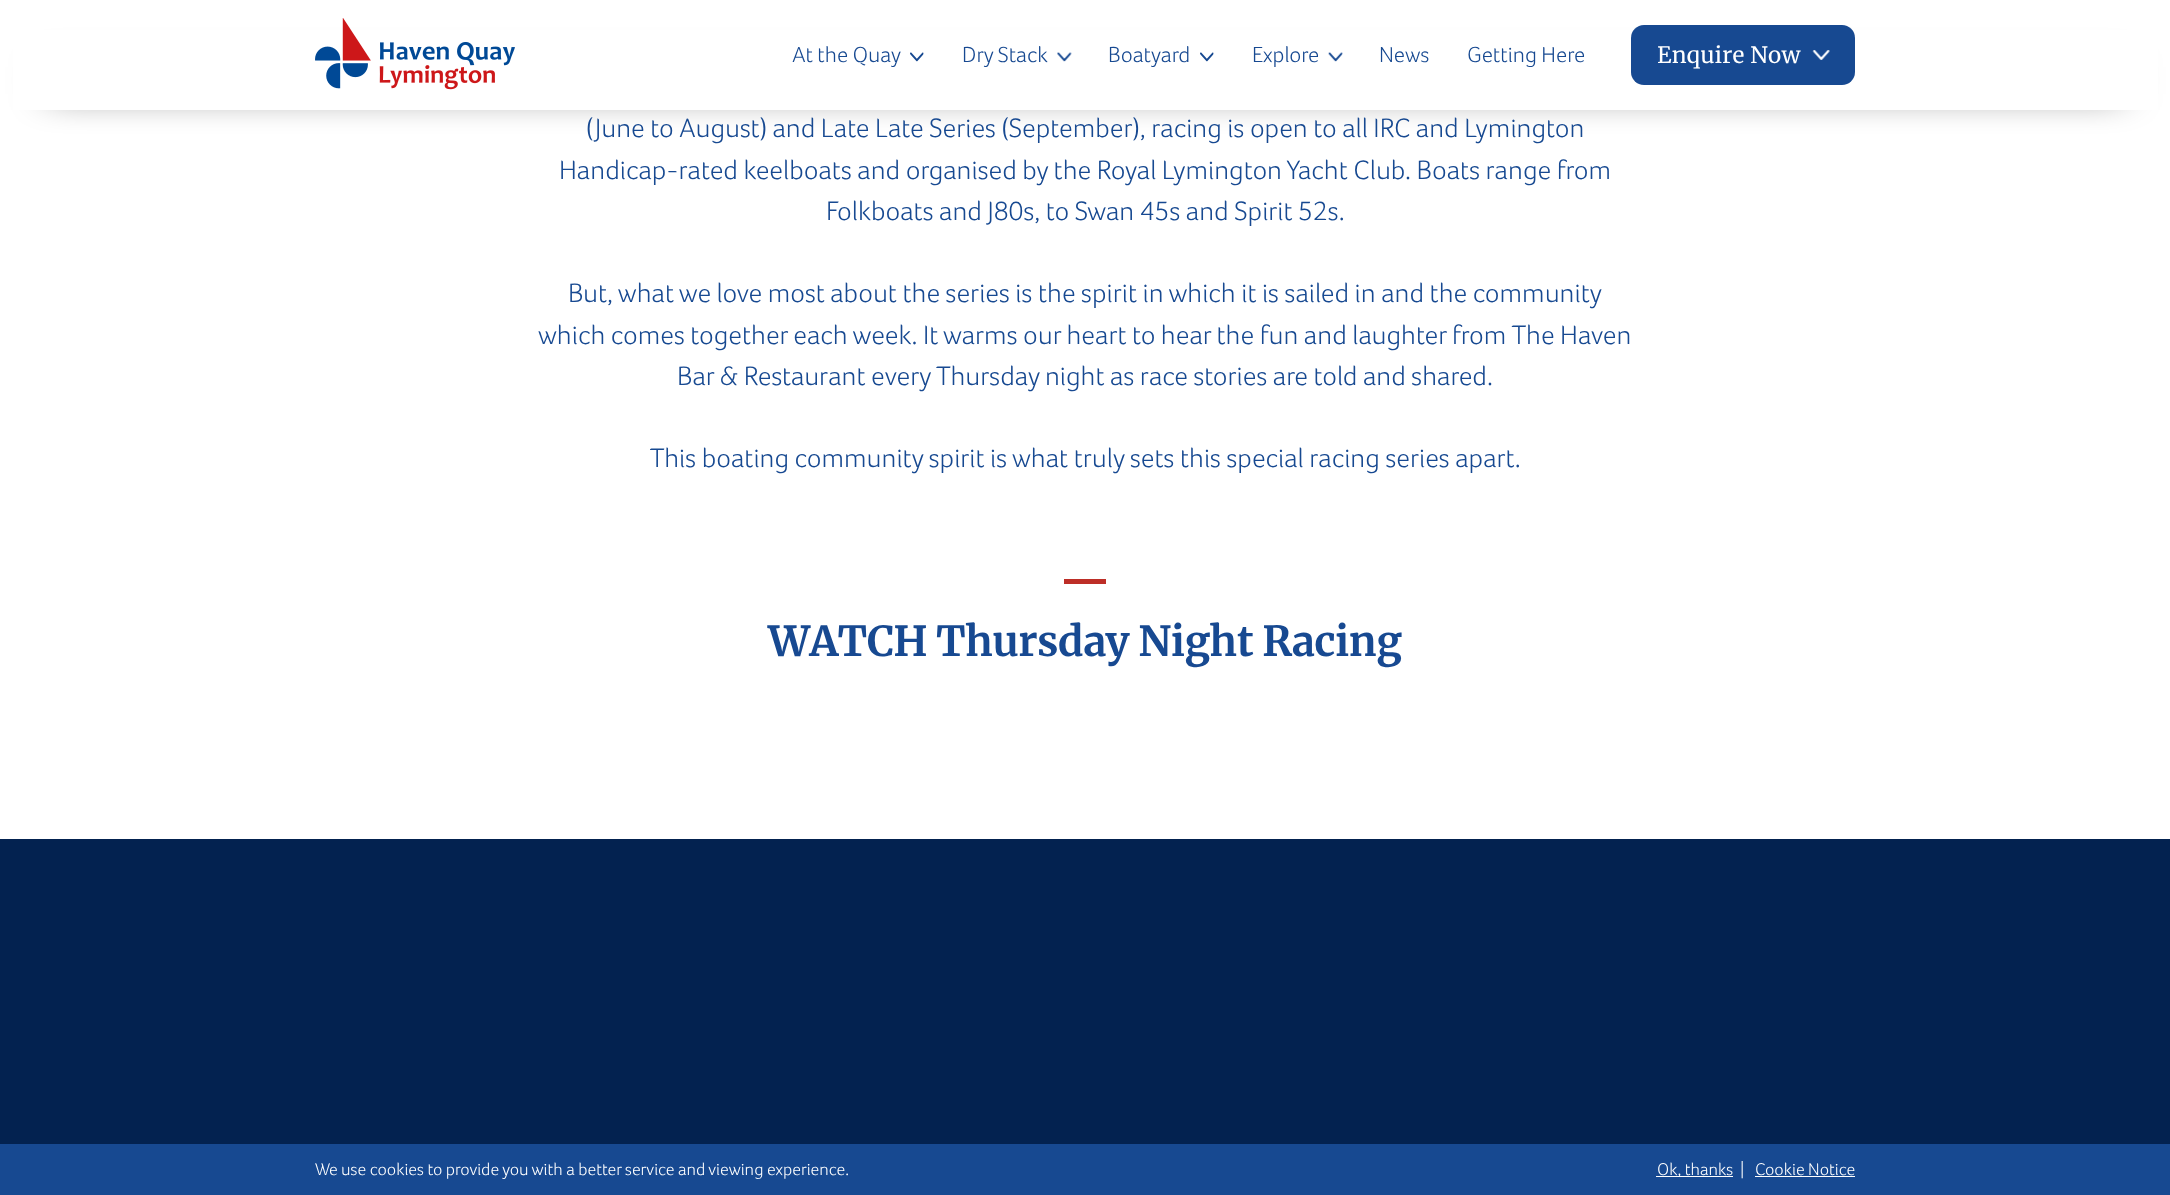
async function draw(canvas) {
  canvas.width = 2170
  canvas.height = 1195
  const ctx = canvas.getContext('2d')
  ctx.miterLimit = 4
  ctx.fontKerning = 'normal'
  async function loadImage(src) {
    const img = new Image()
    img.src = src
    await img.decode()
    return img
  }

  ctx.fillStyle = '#fff'
  ctx.fillRect(0, 0, 2170, 1195)
  ctx.fillStyle = '#000'
  ctx.filter = 'blur(19px)'
  ctx.beginPath()
  ctx.rect(48, 73, 2075, 15)
  ctx.fill()
  ctx.filter = 'none'
  ctx.fillStyle = '#fff'
  ctx.fillRect(13, 30, 2145, 80)
  ctx.drawImage(await loadImage('image0.png'), 315, 18, 200, 72)
  ctx.font = '300 22.5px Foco'
  ctx.fillStyle = '#174991'
  ctx.fillText('At the Quay', 792, 62)
  ctx.drawImage(await loadImage('image1.png'), 910, 52, 14, 10)
  ctx.fillText('Dry Stack', 962, 62)
  ctx.drawImage(await loadImage('image2.png'), 1057, 52, 15, 10)
  ctx.fillText('Boatyard', 1108, 62)
  ctx.drawImage(await loadImage('image1.png'), 1200, 52, 14, 10)
  ctx.fillText('Explore', 1252, 62)
  ctx.drawImage(await loadImage('image3.png'), 1328, 52, 15, 10)
  ctx.fillText('News', 1379, 62)
  ctx.fillText('Getting Here', 1467, 62)
  ctx.beginPath()
  ctx.roundRect(1631, 25, 224, 60, 13)
  ctx.fill()
  ctx.font = '22.5px Merriweather'
  ctx.fillStyle = '#fff'
  ctx.fillText('Enquire Now', 1657, 63)
  ctx.drawImage(await loadImage('image4.png'), 1812, 50, 18, 10)
  ctx.font = '300 27.5px Foco'
  ctx.fillStyle = '#174991'
  ctx.fillText('(June to August) and Late Late Series (September), racing is open to all IRC and Lymington', 586, 137)
  ctx.fillText('Handicap-rated keelboats and organised by the Royal Lymington Yacht Club. Boats range from', 559, 179)
  ctx.fillText('Folkboats and J80s, to Swan 45s and Spirit 52s.', 826, 220)
  ctx.fillText('But, what we love most about the series is the spirit in which it is sailed in and the community', 568, 302)
  ctx.fillText('which comes together each week. It warms our heart to hear the fun and laughter from The Haven', 538, 344)
  ctx.fillText('Bar & Restaurant every Thursday night as race stories are told and shared.', 677, 385)
  ctx.fillText('This boating community spirit is what truly sets this special racing series apart.', 650, 467)
  ctx.fillStyle = '#bd2e27'
  ctx.fillRect(1064, 579, 42, 5)
  ctx.letterSpacing = '-0.55px'
  ctx.font = 'bold 41.25px Merriweather'
  ctx.fillStyle = '#174991'
  ctx.fillText('WATCH Thursday Night Racing', 768, 656)
  ctx.fillStyle = '#032250'
  ctx.fillRect(0, 839, 2170, 305)
  ctx.fillStyle = '#174991'
  ctx.fillRect(0, 1144, 2170, 51)
  ctx.letterSpacing = '0px'
  ctx.font = '300 17.5px Foco'
  ctx.fillStyle = '#fff'
  ctx.fillText('We use cookies to provide you with a better service and viewing experience.', 315, 1175)
  ctx.fillRect(1656, 1176, 77, 1)
  ctx.fillText('Ok, thanks', 1657, 1175)
  ctx.fillText('|', 1740, 1175)
  ctx.fillText('Cookie Notice', 1755, 1175)
  ctx.fillRect(1755, 1176, 100, 1)
}

draw(document.querySelector('canvas'))
